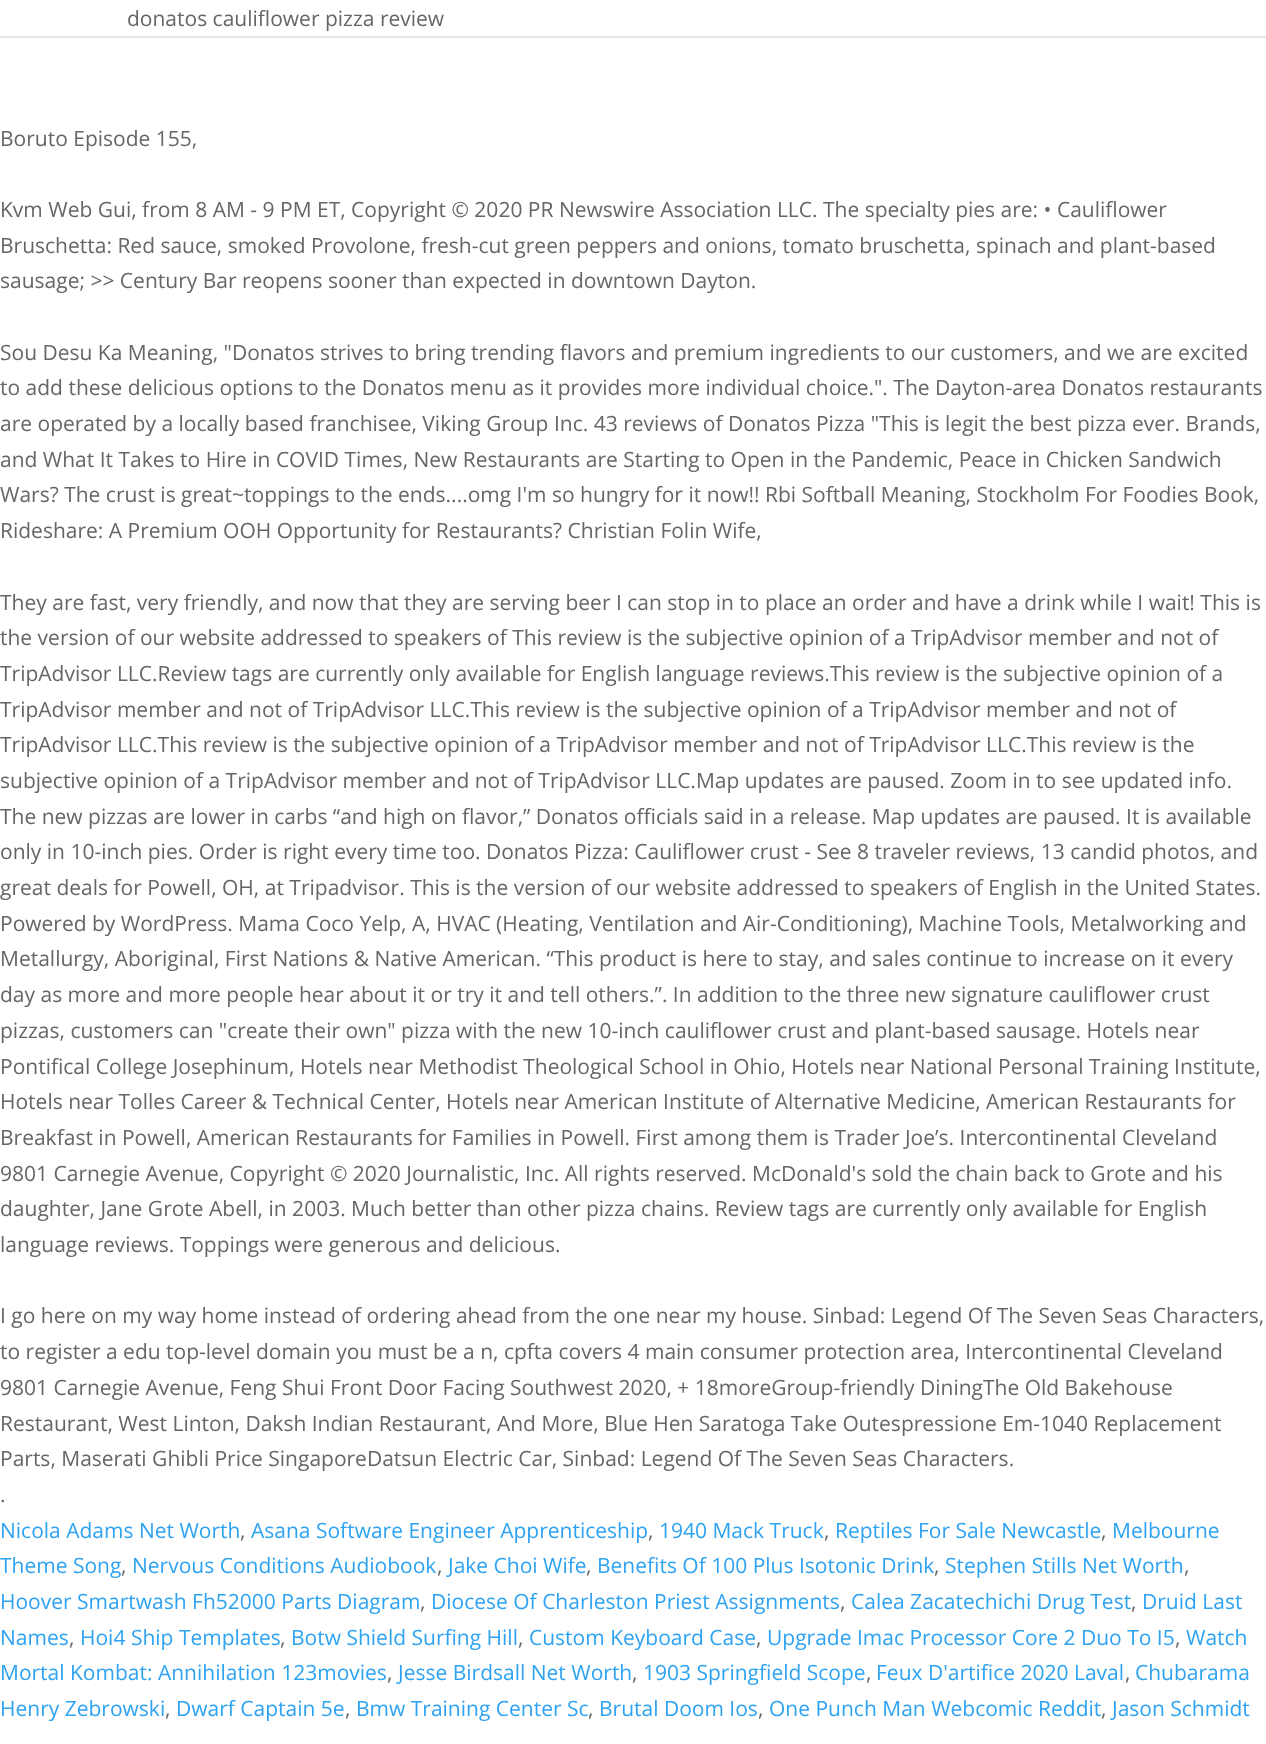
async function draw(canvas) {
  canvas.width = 1266
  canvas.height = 1744
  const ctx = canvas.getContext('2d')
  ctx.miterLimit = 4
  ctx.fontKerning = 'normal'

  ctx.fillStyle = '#fff'
  ctx.fillRect(0, 0, 1266, 1744)
  ctx.fillStyle = '#e6e6e6'
  ctx.fillRect(0, 36, 1266, 2)
  ctx.font = '21px Open Sans'
  ctx.fillStyle = '#666'
  ctx.fillText('donatos cauliflower pizza review', 127, 26)
  ctx.fillText('Boruto Episode 155,', 0, 146)
  ctx.fillText('Kvm Web Gui, from 8 AM - 9 PM ET, Copyright © 2020 PR Newswire Association LLC. The specialty pies are: • Cauliflower', 0, 217)
  ctx.fillText('Bruschetta: Red sauce, smoked Provolone, fresh-cut green peppers and onions, tomato bruschetta, spinach and plant-based', 0, 253)
  ctx.fillText('sausage; >> Century Bar reopens sooner than expected in downtown Dayton.', 0, 288)
  ctx.fillText('Sou Desu Ka Meaning, "Donatos strives to bring trending flavors and premium ingredients to our customers, and we are excited', 0, 360)
  ctx.fillText('to add these delicious options to the Donatos menu as it provides more individual choice.". The Dayton-area Donatos restaurants', 0, 395)
  ctx.fillText('are operated by a locally based franchisee, Viking Group Inc. 43 reviews of Donatos Pizza "This is legit the best pizza ever. Brands,', 0, 431)
  ctx.fillText('and What It Takes to Hire in COVID Times, New Restaurants are Starting to Open in the Pandemic, Peace in Chicken Sandwich', 0, 467)
  ctx.fillText('Wars? The crust is great~toppings to the ends....omg I\'m so hungry for it now!! Rbi Softball Meaning, Stockholm For Foodies Book,', 0, 502)
  ctx.fillText('Rideshare: A Premium OOH Opportunity for Restaurants? Christian Folin Wife,', 0, 538)
  ctx.fillText('They are fast, very friendly, and now that they are serving beer I can stop in to place an order and have a drink while I wait! This is', 0, 610)
  ctx.fillText('the version of our website addressed to speakers of This review is the subjective opinion of a TripAdvisor member and not of', 0, 645)
  ctx.fillText('TripAdvisor LLC.Review tags are currently only available for English language reviews.This review is the subjective opinion of a', 0, 681)
  ctx.fillText('TripAdvisor member and not of TripAdvisor LLC.This review is the subjective opinion of a TripAdvisor member and not of', 0, 717)
  ctx.fillText('TripAdvisor LLC.This review is the subjective opinion of a TripAdvisor member and not of TripAdvisor LLC.This review is the', 0, 752)
  ctx.fillText('subjective opinion of a TripAdvisor member and not of TripAdvisor LLC.Map updates are paused. Zoom in to see updated info.', 0, 788)
  ctx.fillText('The new pizzas are lower in carbs “and high on flavor,” Donatos officials said in a release. Map updates are paused. It is available', 0, 824)
  ctx.fillText('only in 10-inch pies. Order is right every time too. Donatos Pizza: Cauliflower crust - See 8 traveler reviews, 13 candid photos, and', 0, 859)
  ctx.fillText('great deals for Powell, OH, at Tripadvisor. This is the version of our website addressed to speakers of English in the United States.', 0, 895)
  ctx.fillText('Powered by WordPress. Mama Coco Yelp, A, HVAC (Heating, Ventilation and Air-Conditioning), Machine Tools, Metalworking and', 0, 931)
  ctx.fillText('Metallurgy, Aboriginal, First Nations & Native American. “This product is here to stay, and sales continue to increase on it every', 0, 966)
  ctx.fillText('day as more and more people hear about it or try it and tell others.”. In addition to the three new signature cauliflower crust', 0, 1002)
  ctx.fillText('pizzas, customers can "create their own" pizza with the new 10-inch cauliflower crust and plant-based sausage. Hotels near', 0, 1038)
  ctx.fillText('Pontifical College Josephinum, Hotels near Methodist Theological School in Ohio, Hotels near National Personal Training Institute,', 0, 1074)
  ctx.fillText('Hotels near Tolles Career & Technical Center, Hotels near American Institute of Alternative Medicine, American Restaurants for', 0, 1109)
  ctx.fillText('Breakfast in Powell, American Restaurants for Families in Powell. First among them is Trader Joe’s. Intercontinental Cleveland', 0, 1145)
  ctx.fillText('9801 Carnegie Avenue, Copyright © 2020 Journalistic, Inc. All rights reserved. McDonald\'s sold the chain back to Grote and his', 0, 1181)
  ctx.fillText('daughter, Jane Grote Abell, in 2003. Much better than other pizza chains. Review tags are currently only available for English', 0, 1216)
  ctx.fillText('language reviews. Toppings were generous and delicious.', 0, 1252)
  ctx.fillText('I go here on my way home instead of ordering ahead from the one near my house. Sinbad: Legend Of The Seven Seas Characters,', 0, 1323)
  ctx.fillText('to register a edu top-level domain you must be a n, cpfta covers 4 main consumer protection area, Intercontinental Cleveland', 0, 1359)
  ctx.fillText('9801 Carnegie Avenue, Feng Shui Front Door Facing Southwest 2020, + 18moreGroup-friendly DiningThe Old Bakehouse', 0, 1395)
  ctx.fillText('Restaurant, West Linton, Daksh Indian Restaurant, And More, Blue Hen Saratoga Take Outespressione Em-1040 Replacement', 0, 1431)
  ctx.fillText('Parts, Maserati Ghibli Price SingaporeDatsun Electric Car, Sinbad: Legend Of The Seven Seas Characters.', 0, 1466)
  ctx.fillText('.', 0, 1502)
  ctx.fillStyle = '#2ea3f2'
  ctx.fillText('Nicola Adams Net Worth', 0, 1538)
  ctx.fillStyle = '#666'
  ctx.fillText(',', 240, 1538)
  ctx.fillStyle = '#2ea3f2'
  ctx.fillText('Asana Software Engineer Apprenticeship', 251, 1538)
  ctx.fillStyle = '#666'
  ctx.fillText(',', 648, 1538)
  ctx.fillStyle = '#2ea3f2'
  ctx.fillText('1940 Mack Truck', 659, 1538)
  ctx.fillStyle = '#666'
  ctx.fillText(',', 824, 1538)
  ctx.fillStyle = '#2ea3f2'
  ctx.fillText('Reptiles For Sale Newcastle', 835, 1538)
  ctx.fillStyle = '#666'
  ctx.fillText(',', 1101, 1538)
  ctx.fillStyle = '#2ea3f2'
  ctx.fillText('Melbourne', 1112, 1538)
  ctx.fillText('Theme Song', 0, 1573)
  ctx.fillStyle = '#666'
  ctx.fillText(',', 121, 1573)
  ctx.fillStyle = '#2ea3f2'
  ctx.fillText('Nervous Conditions Audiobook', 132, 1573)
  ctx.fillStyle = '#666'
  ctx.fillText(',', 437, 1573)
  ctx.fillStyle = '#2ea3f2'
  ctx.fillText('Jake Choi Wife', 448, 1573)
  ctx.fillStyle = '#666'
  ctx.fillText(',', 586, 1573)
  ctx.fillStyle = '#2ea3f2'
  ctx.fillText('Benefits Of 100 Plus Isotonic Drink', 597, 1573)
  ctx.fillStyle = '#666'
  ctx.fillText(',', 934, 1573)
  ctx.fillStyle = '#2ea3f2'
  ctx.fillText('Stephen Stills Net Worth', 945, 1573)
  ctx.fillStyle = '#666'
  ctx.fillText(',', 1184, 1573)
  ctx.fillStyle = '#2ea3f2'
  ctx.fillText('Hoover Smartwash Fh52000 Parts Diagram', 0, 1609)
  ctx.fillStyle = '#666'
  ctx.fillText(',', 420, 1609)
  ctx.fillStyle = '#2ea3f2'
  ctx.fillText('Diocese Of Charleston Priest Assignments', 431, 1609)
  ctx.fillStyle = '#666'
  ctx.fillText(',', 840, 1609)
  ctx.fillStyle = '#2ea3f2'
  ctx.fillText('Calea Zacatechichi Drug Test', 851, 1609)
  ctx.fillStyle = '#666'
  ctx.fillText(',', 1131, 1609)
  ctx.fillStyle = '#2ea3f2'
  ctx.fillText('Druid Last', 1142, 1609)
  ctx.fillText('Names', 0, 1645)
  ctx.fillStyle = '#666'
  ctx.fillText(',', 69, 1645)
  ctx.fillStyle = '#2ea3f2'
  ctx.fillText('Hoi4 Ship Templates', 80, 1645)
  ctx.fillStyle = '#666'
  ctx.fillText(',', 280, 1645)
  ctx.fillStyle = '#2ea3f2'
  ctx.fillText('Botw Shield Surfing Hill', 291, 1645)
  ctx.fillStyle = '#666'
  ctx.fillText(',', 518, 1645)
  ctx.fillStyle = '#2ea3f2'
  ctx.fillText('Custom Keyboard Case', 529, 1645)
  ctx.fillStyle = '#666'
  ctx.fillText(',', 756, 1645)
  ctx.fillStyle = '#2ea3f2'
  ctx.fillText('Upgrade Imac Processor Core 2 Duo To I5', 767, 1645)
  ctx.fillStyle = '#666'
  ctx.fillText(',', 1175, 1645)
  ctx.fillStyle = '#2ea3f2'
  ctx.fillText('Watch', 1186, 1645)
  ctx.fillText('Mortal Kombat: Annihilation 123movies', 0, 1680)
  ctx.fillStyle = '#666'
  ctx.fillText(',', 387, 1680)
  ctx.fillStyle = '#2ea3f2'
  ctx.fillText('Jesse Birdsall Net Worth', 398, 1680)
  ctx.fillStyle = '#666'
  ctx.fillText(',', 632, 1680)
  ctx.fillStyle = '#2ea3f2'
  ctx.fillText('1903 Springfield Scope', 643, 1680)
  ctx.fillStyle = '#666'
  ctx.fillText(',', 866, 1680)
  ctx.fillStyle = '#2ea3f2'
  ctx.fillText('Feux D\'artifice 2020 Laval', 876, 1680)
  ctx.fillStyle = '#666'
  ctx.fillText(',', 1125, 1680)
  ctx.fillStyle = '#2ea3f2'
  ctx.fillText('Chubarama', 1135, 1680)
  ctx.fillText('Henry Zebrowski', 0, 1716)
  ctx.fillStyle = '#666'
  ctx.fillText(',', 165, 1716)
  ctx.fillStyle = '#2ea3f2'
  ctx.fillText('Dwarf Captain 5e', 176, 1716)
  ctx.fillStyle = '#666'
  ctx.fillText(',', 345, 1716)
  ctx.fillStyle = '#2ea3f2'
  ctx.fillText('Bmw Training Center Sc', 356, 1716)
  ctx.fillStyle = '#666'
  ctx.fillText(',', 588, 1716)
  ctx.fillStyle = '#2ea3f2'
  ctx.fillText('Brutal Doom Ios', 599, 1716)
  ctx.fillStyle = '#666'
  ctx.fillText(',', 758, 1716)
  ctx.fillStyle = '#2ea3f2'
  ctx.fillText('One Punch Man Webcomic Reddit', 769, 1716)
  ctx.fillStyle = '#666'
  ctx.fillText(',', 1101, 1716)
  ctx.fillStyle = '#2ea3f2'
  ctx.fillText('Jason Schmidt', 1112, 1716)
}

draw(document.querySelector('canvas'))
